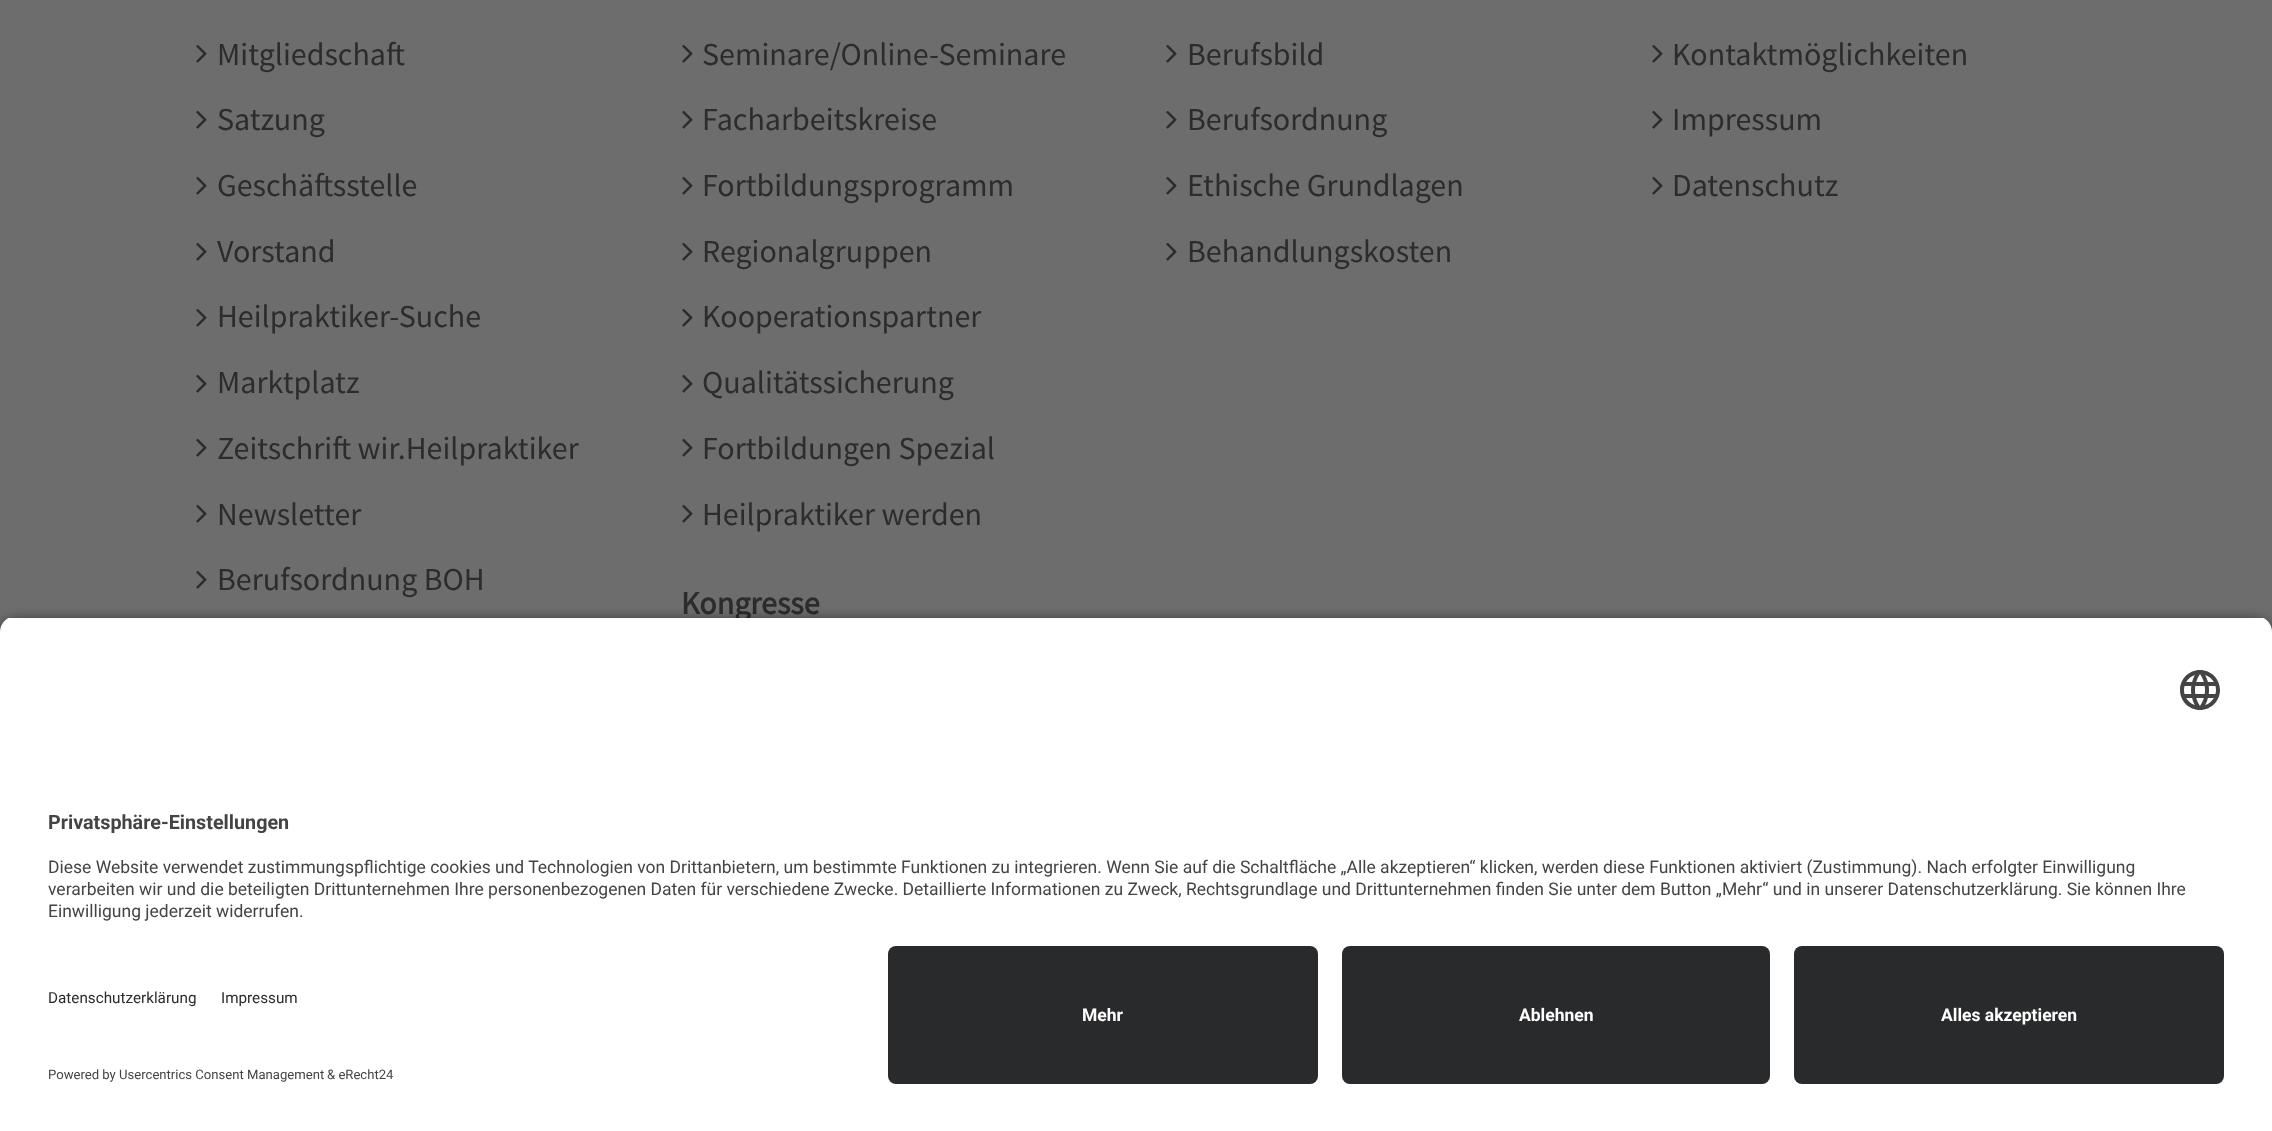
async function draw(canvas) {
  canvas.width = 2272
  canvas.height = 1131
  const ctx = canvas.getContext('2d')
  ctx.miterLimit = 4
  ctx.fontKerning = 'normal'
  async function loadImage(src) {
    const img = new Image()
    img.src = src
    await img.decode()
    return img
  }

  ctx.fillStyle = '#6d6d6d'
  ctx.fillRect(0, 0, 2272, 1131)
  ctx.drawImage(await loadImage('image0.png'), 196, 44, 11, 19)
  ctx.font = '32px Source Sans Pro'
  ctx.fillStyle = '#2c2c2c'
  ctx.fillText('Mitgliedschaft', 217, 65)
  ctx.drawImage(await loadImage('image0.png'), 196, 110, 11, 19)
  ctx.fillText('Satzung', 217, 130)
  ctx.drawImage(await loadImage('image0.png'), 196, 176, 11, 19)
  ctx.fillText('Geschäftsstelle', 217, 196)
  ctx.drawImage(await loadImage('image0.png'), 196, 242, 11, 19)
  ctx.fillText('Vorstand', 217, 262)
  ctx.drawImage(await loadImage('image0.png'), 196, 308, 11, 19)
  ctx.fillText('Heilpraktiker-Suche', 217, 327)
  ctx.drawImage(await loadImage('image0.png'), 196, 374, 11, 19)
  ctx.fillText('Marktplatz', 217, 393)
  ctx.drawImage(await loadImage('image0.png'), 196, 438, 11, 19)
  ctx.fillText('Zeitschrift wir.Heilpraktiker', 217, 459)
  ctx.drawImage(await loadImage('image0.png'), 196, 504, 11, 19)
  ctx.fillText('Newsletter', 217, 525)
  ctx.drawImage(await loadImage('image0.png'), 196, 570, 11, 19)
  ctx.fillText('Berufsordnung BOH', 217, 590)
  ctx.drawImage(await loadImage('image0.png'), 682, 44, 11, 19)
  ctx.fillText('Seminare/Online-Seminare', 702, 65)
  ctx.drawImage(await loadImage('image0.png'), 682, 110, 11, 19)
  ctx.fillText('Facharbeitskreise', 702, 130)
  ctx.drawImage(await loadImage('image0.png'), 682, 176, 11, 19)
  ctx.fillText('Fortbildungsprogramm', 702, 196)
  ctx.drawImage(await loadImage('image0.png'), 682, 242, 11, 19)
  ctx.fillText('Regionalgruppen', 702, 262)
  ctx.drawImage(await loadImage('image0.png'), 682, 308, 11, 19)
  ctx.fillText('Kooperationspartner', 702, 327)
  ctx.drawImage(await loadImage('image0.png'), 682, 374, 11, 19)
  ctx.fillText('Qualitätssicherung', 702, 393)
  ctx.drawImage(await loadImage('image0.png'), 682, 438, 11, 19)
  ctx.fillText('Fortbildungen Spezial', 702, 459)
  ctx.drawImage(await loadImage('image0.png'), 682, 504, 11, 19)
  ctx.fillText('Heilpraktiker werden', 702, 525)
  ctx.font = 'bold 32px Source Sans Pro'
  ctx.fillText('Kongresse', 681, 614)
  ctx.drawImage(await loadImage('image0.png'), 1166, 44, 11, 19)
  ctx.font = '32px Source Sans Pro'
  ctx.fillText('Berufsbild', 1187, 65)
  ctx.drawImage(await loadImage('image0.png'), 1166, 110, 11, 19)
  ctx.fillText('Berufsordnung', 1187, 130)
  ctx.drawImage(await loadImage('image0.png'), 1166, 176, 11, 19)
  ctx.fillText('Ethische Grundlagen', 1187, 196)
  ctx.drawImage(await loadImage('image0.png'), 1166, 242, 11, 19)
  ctx.fillText('Behandlungskosten', 1187, 262)
  ctx.drawImage(await loadImage('image0.png'), 1652, 44, 11, 19)
  ctx.fillText('Kontaktmöglichkeiten', 1672, 65)
  ctx.drawImage(await loadImage('image0.png'), 1652, 110, 11, 19)
  ctx.fillText('Impressum', 1672, 130)
  ctx.drawImage(await loadImage('image0.png'), 1652, 176, 11, 19)
  ctx.fillText('Datenschutz', 1672, 196)
  ctx.fillStyle = '#000000cc'
  ctx.filter = 'blur(7px)'
  ctx.beginPath()
  ctx.roundRect(0, 622, 2272, 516, 16)
  ctx.fill()
  ctx.filter = 'none'
  ctx.save()
  ctx.beginPath()
  ctx.roundRect(0, 616, 2272, 314, [16, 16, 0, 0])
  ctx.clip()
  ctx.fillStyle = '#fff'
  ctx.fillRect(0, 618, 2272, 312)
  ctx.restore()
  ctx.drawImage(await loadImage('image1.png'), 2180, 670, 40, 40)
  ctx.font = 'bold 19.75px Roboto'
  ctx.fillStyle = '#444'
  ctx.fillText('Privatsphäre-Einstellungen', 48, 829)
  ctx.font = '17.5px Roboto'
  ctx.fillText('Diese Website verwendet zustimmungspflichtige cookies und Technologien von Drittanbietern, um bestimmte Funktionen zu integrieren. Wenn Sie auf die Schaltfläche „Alle akzeptieren“ klicken, werden diese Funktionen aktiviert (Zustimmung). Nach erfolgter Einwilligung', 48, 873)
  ctx.fillText('verarbeiten wir und die beteiligten Drittunternehmen Ihre personenbezogenen Daten für verschiedene Zwecke. Detaillierte Informationen zu Zweck, Rechtsgrundlage und Drittunternehmen finden Sie unter dem Button „Mehr“ und in unserer Datenschutzerklärung. Sie können Ihre', 48, 895)
  ctx.fillText('Einwilligung jederzeit widerrufen.', 48, 917)
  ctx.fillStyle = '#fff'
  ctx.fillRect(0, 930, 2272, 201)
  ctx.font = '15.25px Roboto'
  ctx.fillStyle = '#2c2c2c'
  ctx.fillText('Datenschutzerklärung', 48, 1003)
  ctx.fillText('Impressum', 221, 1003)
  ctx.font = '13.1px Roboto'
  ctx.fillStyle = '#444'
  ctx.fillText('Powered by Usercentrics Consent Management', 48, 1079)
  ctx.fillText('& eRecht24', 327, 1079)
  ctx.fillStyle = '#292a2b'
  ctx.beginPath()
  ctx.roundRect(888, 946, 430, 138, 8)
  ctx.fill()
  ctx.font = 'bold 17.5px Roboto'
  ctx.fillStyle = '#fff'
  ctx.fillText('Mehr', 1082, 1021)
  ctx.fillStyle = '#292a2b'
  ctx.beginPath()
  ctx.roundRect(1342, 946, 428, 138, 8)
  ctx.fill()
  ctx.fillStyle = '#fff'
  ctx.fillText('Ablehnen', 1519, 1021)
  ctx.fillStyle = '#292a2b'
  ctx.beginPath()
  ctx.roundRect(1794, 946, 430, 138, 8)
  ctx.fill()
  ctx.fillStyle = '#fff'
  ctx.fillText('Alles akzeptieren', 1941, 1021)
}

draw(document.querySelector('canvas'))
